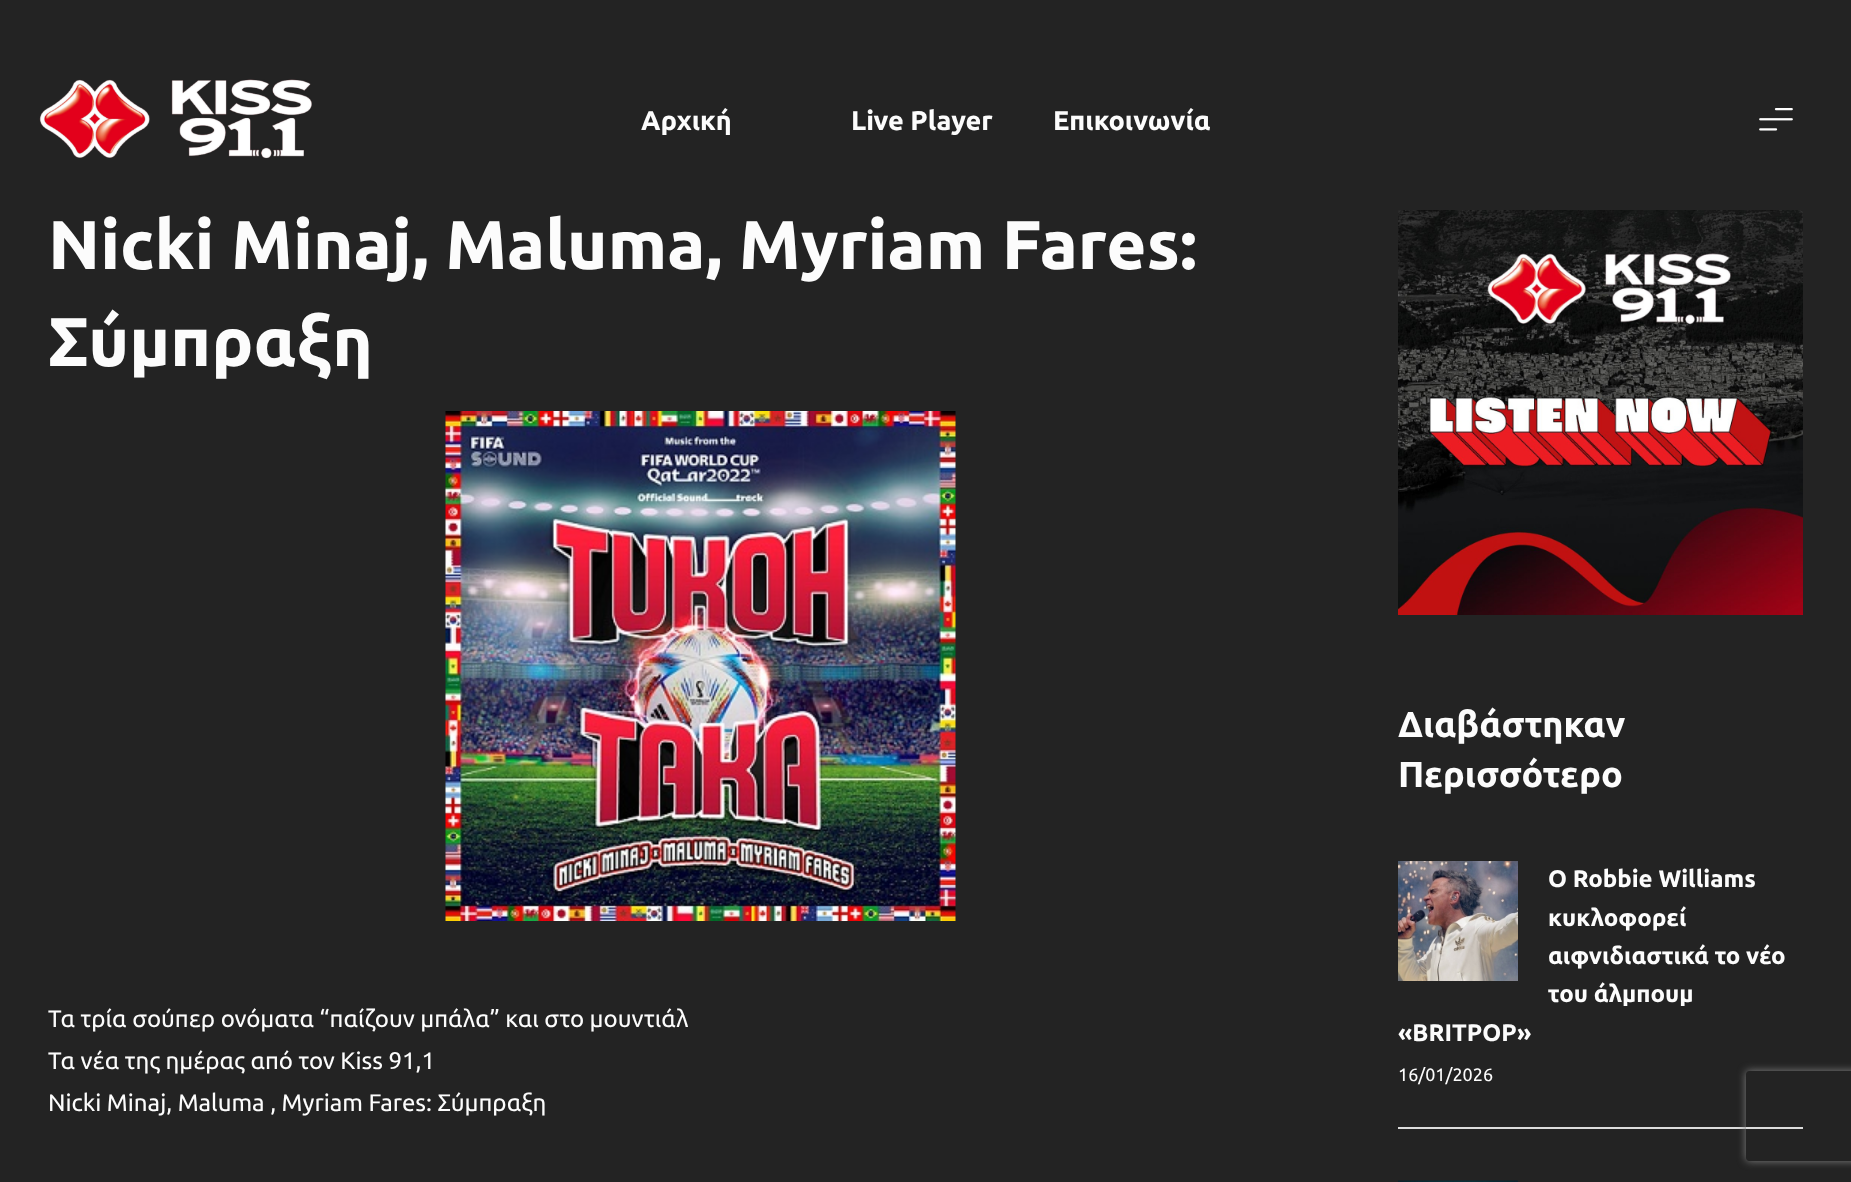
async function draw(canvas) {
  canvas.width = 1851
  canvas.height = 1182
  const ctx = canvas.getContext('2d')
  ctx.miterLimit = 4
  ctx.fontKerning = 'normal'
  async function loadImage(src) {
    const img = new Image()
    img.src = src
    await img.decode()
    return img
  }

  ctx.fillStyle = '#232323'
  ctx.fillRect(0, 0, 1851, 1182)
  ctx.drawImage(await loadImage('image0.png'), 39, 79, 273, 80)
  ctx.font = 'bold 27px Ubuntu'
  ctx.fillStyle = '#fcfcfc'
  ctx.fillText('Αρχική', 641, 130)
  ctx.fillText('Live Player', 851, 130)
  ctx.fillText('Επικοινωνία', 1053, 130)
  ctx.drawImage(await loadImage('image1.png'), 1759, 108, 34, 23)
  ctx.font = 'bold 69px Ubuntu'
  ctx.fillText('Nicki Minaj, Maluma, Myriam Fares:', 48, 269)
  ctx.fillText('Σύμπραξη', 48, 366)
  ctx.drawImage(await loadImage('image2.png'), 445, 411, 511, 510)
  ctx.font = '24px Ubuntu'
  ctx.fillText('Τα τρία σούπερ ονόματα “παίζουν μπάλα” και στο μουντιάλ', 48, 1027)
  ctx.fillText('Τα νέα της ημέρας από τον Kiss 91,1', 48, 1069)
  ctx.fillText('Nicki Minaj, Maluma , Myriam Fares: Σύμπραξη', 48, 1111)
  ctx.drawImage(await loadImage('image3.png'), 1398, 210, 405, 405)
  ctx.font = 'bold 36px Ubuntu'
  ctx.fillText('Διαβάστηκαν', 1398, 737)
  ctx.fillText('Περισσότερο', 1398, 787)
  ctx.fillStyle = '#dcdcdc'
  ctx.fillRect(1398, 1127, 405, 2)
  ctx.drawImage(await loadImage('image4.png'), 1398, 861, 120, 120)
  ctx.font = 'bold 24px Ubuntu'
  ctx.fillStyle = '#fcfcfc'
  ctx.fillText('Ο Robbie Williams', 1548, 887)
  ctx.fillText('κυκλοφορεί', 1548, 926)
  ctx.fillText('αιφνιδιαστικά το νέο', 1548, 964)
  ctx.fillText('του άλμπουμ', 1548, 1002)
  ctx.fillText('«BRITPOP»', 1398, 1041)
  ctx.font = '18px Ubuntu'
  ctx.fillText('16/01/2026', 1398, 1081)
  ctx.drawImage(await loadImage('image5.png'), 1398, 1180, 120, 2)
  ctx.save()
  ctx.beginPath()
  ctx.moveTo(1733, 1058)
  ctx.lineTo(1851, 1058)
  ctx.lineTo(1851, 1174)
  ctx.lineTo(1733, 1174)
  ctx.closePath()
  ctx.moveTo(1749, 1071)
  ctx.lineTo(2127, 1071)
  ctx.bezierCurveTo(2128.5, 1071, 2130, 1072.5, 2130, 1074)
  ctx.lineTo(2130, 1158)
  ctx.bezierCurveTo(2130, 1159.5, 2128.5, 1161, 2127, 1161)
  ctx.lineTo(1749, 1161)
  ctx.bezierCurveTo(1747.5, 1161, 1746, 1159.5, 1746, 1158)
  ctx.lineTo(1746, 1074)
  ctx.bezierCurveTo(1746, 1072.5, 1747.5, 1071, 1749, 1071)
  ctx.closePath()
  ctx.clip('evenodd')
  ctx.fillStyle = '#808080'
  ctx.filter = 'blur(4px)'
  ctx.beginPath()
  ctx.roundRect(1746, 1071, 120, 90, 3)
  ctx.fill()
  ctx.filter = 'none'
  ctx.restore()
}

draw(document.querySelector('canvas'))
